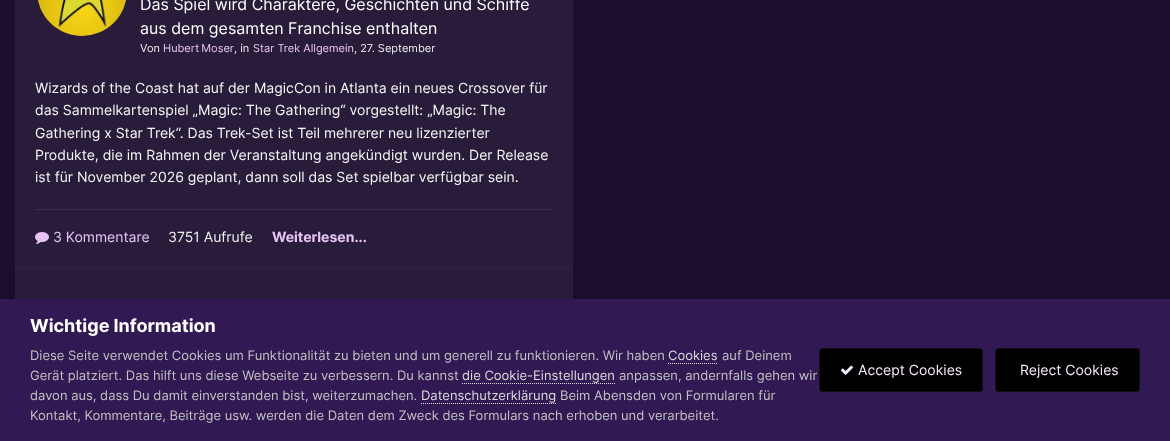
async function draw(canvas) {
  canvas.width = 1170
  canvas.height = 441
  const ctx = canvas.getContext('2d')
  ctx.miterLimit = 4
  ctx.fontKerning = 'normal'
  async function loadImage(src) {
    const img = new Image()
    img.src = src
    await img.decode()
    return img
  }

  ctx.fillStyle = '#1b0e2d'
  ctx.fillRect(0, 0, 1170, 441)
  ctx.fillStyle = '#291c3b'
  ctx.fillRect(15, 263, 558, 36)
  ctx.fillStyle = '#af8ee01a'
  ctx.filter = 'blur(2px)'
  ctx.beginPath()
  ctx.roundRect(16, -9, 556, 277, 3)
  ctx.fill()
  ctx.filter = 'none'
  ctx.fillStyle = '#291c3b'
  ctx.beginPath()
  ctx.roundRect(15, -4, 558, 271, 4)
  ctx.fill()
  ctx.drawImage(await loadImage('image0.png'), 38, 0, 88, 36)
  ctx.font = '16px Inter'
  ctx.fillStyle = '#fff'
  ctx.fillText('Das Spiel wird Charaktere, Geschichten und Schiffe', 140, 10)
  ctx.fillText('aus dem gesamten Franchise enthalten', 140, 34)
  ctx.font = '11px Inter'
  ctx.fillStyle = '#eee'
  ctx.fillText('Von', 140, 52)
  ctx.wordSpacing = '-1px'
  ctx.fillStyle = '#e6c4f5'
  ctx.fillText('Hubert Moser', 163, 52)
  ctx.wordSpacing = '0px'
  ctx.fillStyle = '#eee'
  ctx.fillText(', in', 234, 52)
  ctx.fillStyle = '#e6c4f5'
  ctx.fillText('Star Trek Allgemein', 253, 52)
  ctx.fillStyle = '#eee'
  ctx.fillText(', 27. September', 354, 52)
  ctx.font = '14px Inter'
  ctx.fillStyle = '#f3f6f4'
  ctx.fillText('Wizards of the Coast hat auf der MagicCon in Atlanta ein neues Crossover für', 35, 93)
  ctx.fillText('das Sammelkartenspiel „Magic: The Gathering“ vorgestellt: „Magic: The', 35, 115)
  ctx.fillText('Gathering x Star Trek“. Das Trek-Set ist Teil mehrerer neu lizenzierter', 35, 138)
  ctx.fillText('Produkte, die im Rahmen der Veranstaltung angekündigt wurden. Der Release', 35, 160)
  ctx.fillText('ist für November 2026 geplant, dann soll das Set spielbar verfügbar sein.', 35, 182)
  ctx.fillStyle = '#392d4a'
  ctx.fillRect(35, 209, 518, 1)
  ctx.drawImage(await loadImage('image1.png'), 35, 232, 14, 12)
  ctx.fillStyle = '#e6c4f5'
  ctx.fillText('3 Kommentare', 53, 242)
  ctx.fillStyle = '#eee'
  ctx.fillText('3751 Aufrufe', 168, 242)
  ctx.font = 'bold 14px Inter'
  ctx.fillStyle = '#e6c4f5'
  ctx.fillText('Weiterlesen...', 272, 242)
  ctx.fillStyle = '#311953'
  ctx.fillRect(0, 299, 1170, 142)
  ctx.font = 'bold 18px Inter'
  ctx.fillStyle = '#fff'
  ctx.fillText('Wichtige Information', 30, 332)
  ctx.font = '13px Inter'
  ctx.fillStyle = '#c0c0c0'
  ctx.fillText('Diese Seite verwendet Cookies um Funktionalität zu bieten und um generell zu funktionieren. Wir haben', 30, 360)
  ctx.fillStyle = '#dadada'
  ctx.fillText('Cookies', 668, 360)
  ctx.beginPath()
  ctx.moveTo(668, 363.5)
  ctx.lineTo(718, 363.5)
  ctx.strokeStyle = '#dadada'
  ctx.setLineDash([1, 1])
  ctx.stroke()
  ctx.fillStyle = '#c0c0c0'
  ctx.fillText('auf Deinem', 722, 360)
  ctx.fillText('Gerät platziert. Das hilft uns diese Webseite zu verbessern. Du kannst', 30, 380)
  ctx.fillStyle = '#dadada'
  ctx.fillText('die Cookie-Einstellungen', 462, 380)
  ctx.beginPath()
  ctx.moveTo(462, 383.5)
  ctx.lineTo(615, 383.5)
  ctx.stroke()
  ctx.fillStyle = '#c0c0c0'
  ctx.fillText('anpassen, andernfalls gehen wir', 619, 380)
  ctx.fillText('davon aus, dass Du damit einverstanden bist, weiterzumachen.', 30, 400)
  ctx.fillStyle = '#dadada'
  ctx.fillText('Datenschutzerklärung', 421, 400)
  ctx.beginPath()
  ctx.moveTo(421, 403.5)
  ctx.lineTo(556, 403.5)
  ctx.stroke()
  ctx.fillStyle = '#c0c0c0'
  ctx.fillText('Beim Abensden von Formularen für', 560, 400)
  ctx.fillText('Kontakt, Kommentare, Beiträge usw. werden die Daten dem Zweck des Formulars nach erhoben und verarbeitet.', 30, 420)
  ctx.fillStyle = '#000'
  ctx.beginPath()
  ctx.roundRect(819, 348, 164, 44, 4)
  ctx.fill()
  ctx.beginPath()
  ctx.roundRect(819.5, 348.5, 163, 43, 3.5)
  ctx.strokeStyle = '#f6e8fc12'
  ctx.setLineDash([])
  ctx.stroke()
  ctx.drawImage(await loadImage('image2.png'), 841, 365, 12, 10)
  ctx.font = '14px Inter'
  ctx.fillStyle = '#f6e8fc'
  ctx.fillText('Accept Cookies', 858, 375)
  ctx.fillStyle = '#000'
  ctx.beginPath()
  ctx.roundRect(995, 348, 145, 44, 4)
  ctx.fill()
  ctx.beginPath()
  ctx.roundRect(995.5, 348.5, 144, 43, 3.5)
  ctx.stroke()
  ctx.fillStyle = '#f6e8fc'
  ctx.fillText('Reject Cookies', 1020, 375)
}

draw(document.querySelector('canvas'))
